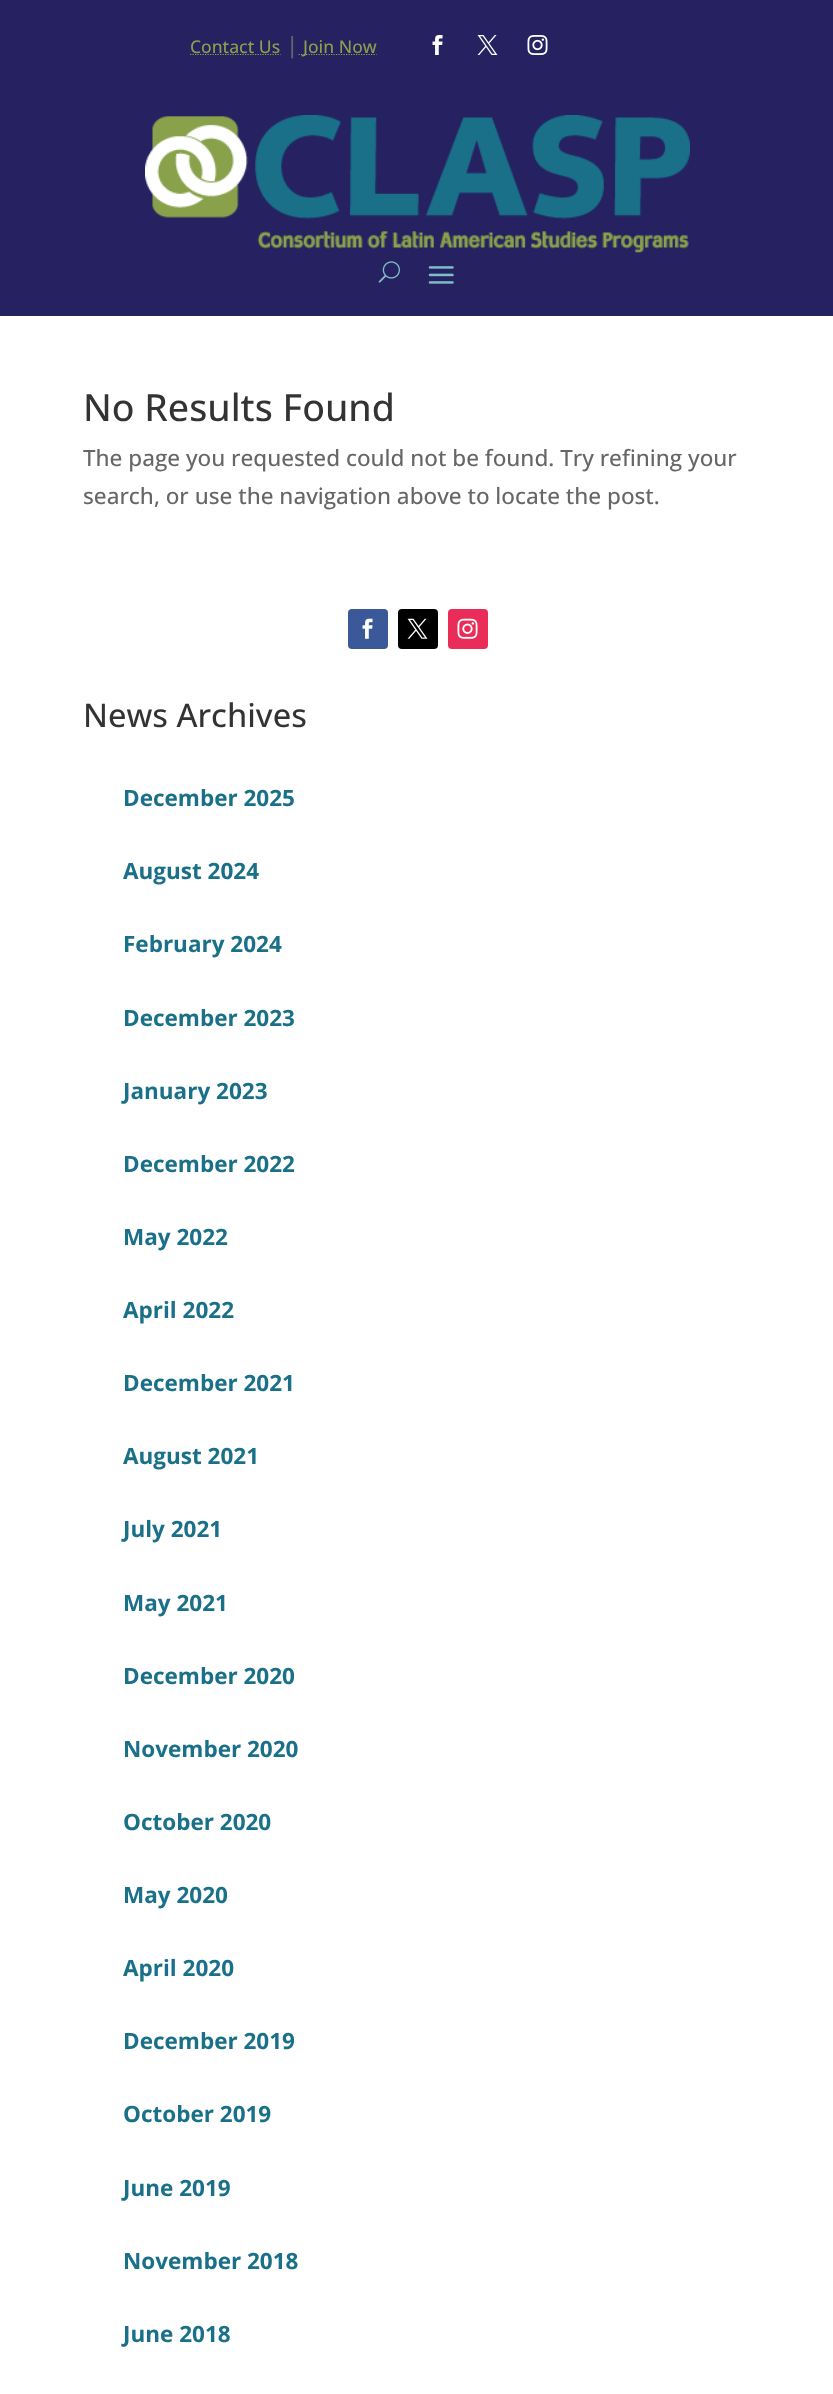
async function draw(canvas) {
  canvas.width = 833
  canvas.height = 2394
  const ctx = canvas.getContext('2d')
  ctx.miterLimit = 4
  ctx.fontKerning = 'normal'
  async function loadImage(src) {
    const img = new Image()
    img.src = src
    await img.decode()
    return img
  }

  ctx.fillStyle = '#fff'
  ctx.fillRect(0, 0, 833, 2394)
  ctx.fillStyle = '#262262'
  ctx.fillRect(0, 0, 833, 316)
  ctx.beginPath()
  ctx.moveTo(190, 54.5)
  ctx.lineTo(280.5, 54.5)
  ctx.strokeStyle = '#88a14a'
  ctx.lineWidth = 1.2
  ctx.setLineDash([1.25, 1.25])
  ctx.stroke()
  ctx.font = '500 17.5px Open Sans'
  ctx.fillStyle = '#88a14a'
  ctx.fillText('Contact Us', 190, 53)
  ctx.font = '500 22.5px Open Sans'
  ctx.fillStyle = '#666'
  ctx.fillText('|', 286, 53)
  ctx.beginPath()
  ctx.moveTo(298.5, 54.5)
  ctx.lineTo(376.5, 54.5)
  ctx.stroke()
  ctx.font = '500 17.5px Open Sans'
  ctx.fillStyle = '#88a14a'
  ctx.fillText('Join Now', 303, 53)
  ctx.drawImage(await loadImage('image0.png'), 432, 35, 11, 20)
  ctx.drawImage(await loadImage('image1.png'), 477, 35, 21, 20)
  ctx.drawImage(await loadImage('image2.png'), 527, 35, 21, 20)
  ctx.drawImage(await loadImage('image3.png'), 145, 115, 545, 138)
  ctx.drawImage(await loadImage('image4.png'), 378, 261, 22, 22)
  ctx.drawImage(await loadImage('image5.png'), 428, 266, 26, 18)
  ctx.font = '500 37.5px Open Sans'
  ctx.fillStyle = '#333'
  ctx.fillText('No Results Found', 83, 421)
  ctx.font = '500 22.5px Open Sans'
  ctx.fillStyle = '#666'
  ctx.fillText('The page you requested could not be found. Try refining your', 83, 466)
  ctx.fillText('search, or use the navigation above to locate the post.', 83, 504)
  ctx.fillStyle = '#3b5998'
  ctx.beginPath()
  ctx.roundRect(348, 609, 40, 40, 4)
  ctx.fill()
  ctx.drawImage(await loadImage('image6.png'), 362, 618, 11, 21)
  ctx.fillStyle = '#000'
  ctx.beginPath()
  ctx.roundRect(398, 609, 40, 40, 4)
  ctx.fill()
  ctx.drawImage(await loadImage('image7.png'), 407, 618, 21, 21)
  ctx.fillStyle = '#ea2c59'
  ctx.beginPath()
  ctx.roundRect(448, 609, 40, 40, 4)
  ctx.fill()
  ctx.drawImage(await loadImage('image8.png'), 457, 618, 21, 21)
  ctx.font = '500 32.5px Open Sans'
  ctx.fillStyle = '#333'
  ctx.fillText('News Archives', 83, 727)
  ctx.font = 'bold 22.5px Open Sans'
  ctx.fillStyle = '#197088'
  ctx.fillText('December 2025', 123, 806)
  ctx.fillText('August 2024', 123, 879)
  ctx.fillText('February 2024', 123, 952)
  ctx.fillText('December 2023', 123, 1026)
  ctx.fillText('January 2023', 123, 1099)
  ctx.fillText('December 2022', 123, 1172)
  ctx.fillText('May 2022', 123, 1245)
  ctx.fillText('April 2022', 123, 1318)
  ctx.fillText('December 2021', 123, 1391)
  ctx.fillText('August 2021', 123, 1464)
  ctx.fillText('July 2021', 123, 1537)
  ctx.fillText('May 2021', 123, 1611)
  ctx.fillText('December 2020', 123, 1684)
  ctx.fillText('November 2020', 123, 1757)
  ctx.fillText('October 2020', 123, 1830)
  ctx.fillText('May 2020', 123, 1903)
  ctx.fillText('April 2020', 123, 1976)
  ctx.fillText('December 2019', 123, 2049)
  ctx.fillText('October 2019', 123, 2122)
  ctx.fillText('June 2019', 123, 2196)
  ctx.fillText('November 2018', 123, 2269)
  ctx.fillText('June 2018', 123, 2342)
}

draw(document.querySelector('canvas'))
